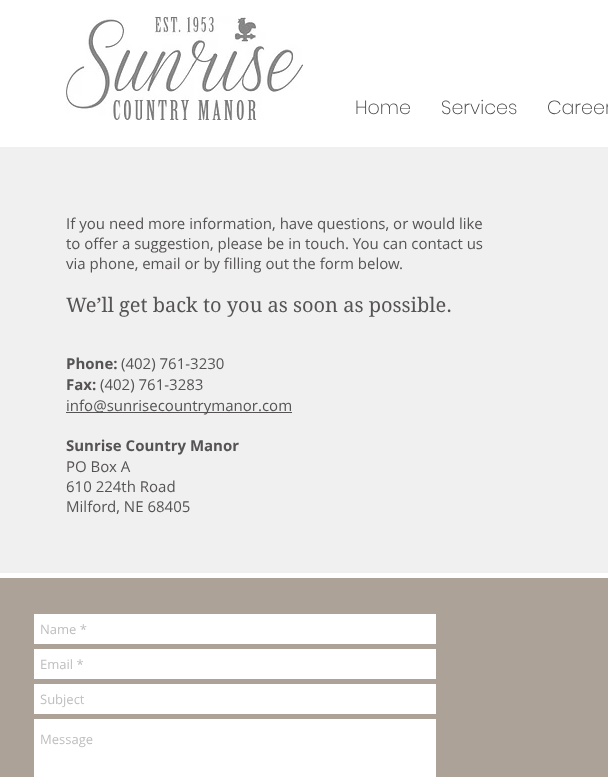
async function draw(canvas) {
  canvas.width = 608
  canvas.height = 777
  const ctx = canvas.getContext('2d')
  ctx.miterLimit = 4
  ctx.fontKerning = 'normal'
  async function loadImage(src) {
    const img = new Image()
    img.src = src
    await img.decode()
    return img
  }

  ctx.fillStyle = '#fff'
  ctx.fillRect(0, 0, 608, 777)
  ctx.drawImage(await loadImage('image0.png'), 66, 16, 237, 104)
  ctx.font = '200 19px Poppins'
  ctx.fillStyle = '#444'
  ctx.fillText('Home', 355, 114)
  ctx.fillText('Services', 441, 114)
  ctx.fillText('Career', 547, 114)
  ctx.fillStyle = '#f0f0f0'
  ctx.fillRect(0, 147, 608, 426)
  ctx.font = '15px Open Sans'
  ctx.fillStyle = '#555353'
  ctx.fillText('If you need more information, have questions, or would like', 66, 229)
  ctx.fillText('to offer a suggestion, please be in touch. You can contact us', 66, 249)
  ctx.fillText('via phone, email or by filling out the form below.', 66, 269)
  ctx.font = '20px "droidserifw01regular"'
  ctx.fillText('We’ll get back to you as soon as possible.', 66, 312)
  ctx.font = 'bold 15px Open Sans'
  ctx.fillText('Phone:', 66, 369)
  ctx.font = '15px Open Sans'
  ctx.fillText('(402) 761-3230', 121, 369)
  ctx.font = 'bold 15px Open Sans'
  ctx.fillText('Fax:', 66, 390)
  ctx.font = '15px Open Sans'
  ctx.fillText('(402) 761-3283', 100, 390)
  ctx.fillRect(66, 412, 226, 1)
  ctx.fillText('info@sunrisecountrymanor.com', 66, 411)
  ctx.font = 'bold 15px Open Sans'
  ctx.fillText('Sunrise Country Manor', 66, 451)
  ctx.font = '15px Open Sans'
  ctx.fillText('PO Box A', 66, 472)
  ctx.fillText('610 224th Road', 66, 492)
  ctx.fillText('Milford, NE 68405', 66, 512)
  ctx.fillStyle = '#aca298'
  ctx.fillRect(0, 578, 608, 199)
  ctx.fillStyle = '#fff'
  ctx.fillRect(34, 614, 402, 30)
  ctx.font = '13px Open Sans'
  ctx.fillStyle = '#bebebe'
  ctx.fillText('Name *', 40, 634)
  ctx.fillStyle = '#fff'
  ctx.fillRect(34, 649, 402, 30)
  ctx.fillStyle = '#bebebe'
  ctx.fillText('Email *', 40, 669)
  ctx.fillStyle = '#fff'
  ctx.fillRect(34, 684, 402, 30)
  ctx.fillStyle = '#bebebe'
  ctx.fillText('Subject', 40, 704)
  ctx.fillStyle = '#fff'
  ctx.fillRect(34, 719, 402, 58)
  ctx.fillStyle = '#bebebe'
  ctx.fillText('Message', 40, 744)
}

draw(document.querySelector('canvas'))
